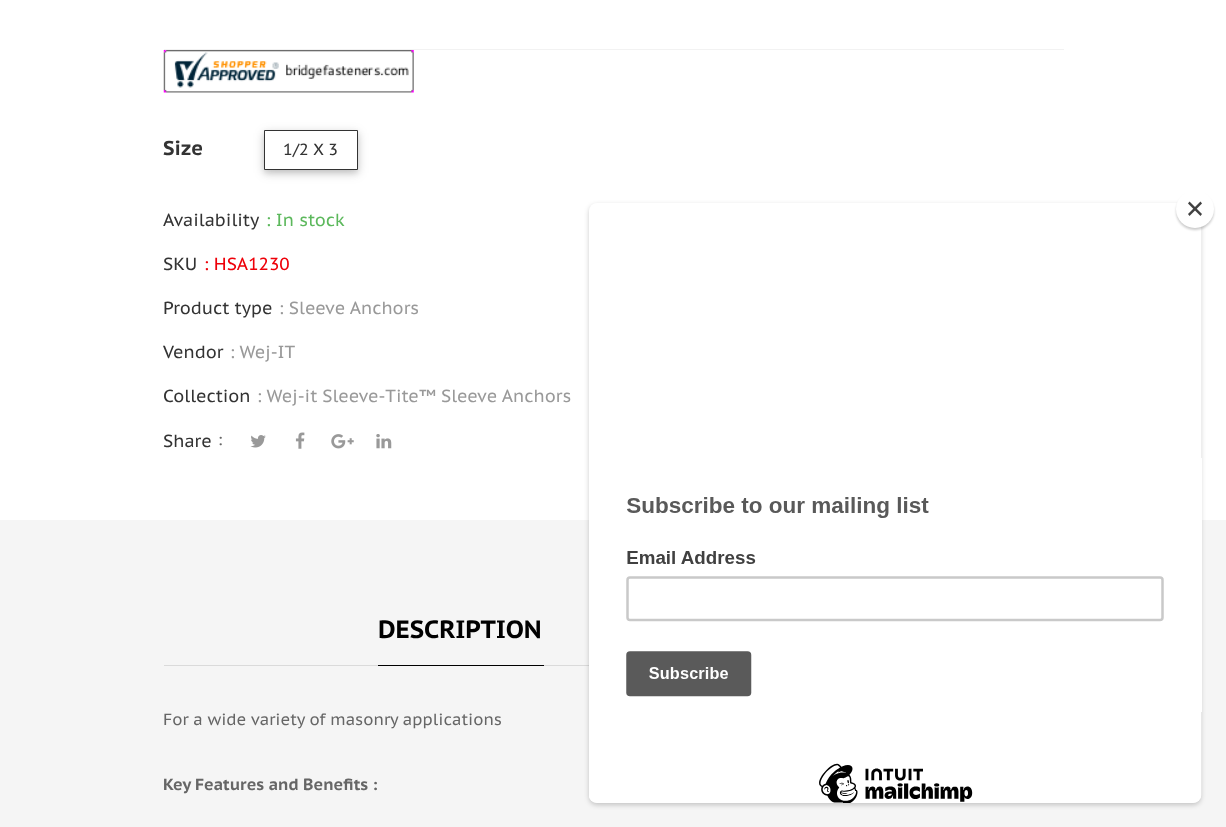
async function draw(canvas) {
  canvas.width = 1226
  canvas.height = 827
  const ctx = canvas.getContext('2d')
  ctx.miterLimit = 4
  ctx.fontKerning = 'normal'
  async function loadImage(src) {
    const img = new Image()
    img.src = src
    await img.decode()
    return img
  }

  ctx.fillStyle = '#fff'
  ctx.fillRect(0, 0, 1226, 827)
  ctx.fillStyle = '#f2f2f2'
  ctx.fillRect(164, 49, 900, 1)
  ctx.drawImage(await loadImage('image0.png'), 163, 50, 251, 43)
  ctx.font = 'bold 20px PT Sans Caption'
  ctx.fillStyle = '#333'
  ctx.fillText('Size', 163, 155)
  ctx.fillStyle = '#0000001f'
  ctx.filter = 'blur(6px)'
  ctx.beginPath()
  ctx.rect(264, 133, 94, 40)
  ctx.fill()
  ctx.filter = 'none'
  ctx.fillStyle = '#00000029'
  ctx.filter = 'blur(3px)'
  ctx.beginPath()
  ctx.rect(264, 133, 94, 40)
  ctx.fill()
  ctx.filter = 'none'
  ctx.fillStyle = '#fff'
  ctx.beginPath()
  ctx.rect(264.5, 130.5, 93, 39)
  ctx.fill()
  ctx.strokeStyle = '#333'
  ctx.stroke()
  ctx.font = '16.25px PT Sans Caption'
  ctx.fillStyle = '#333'
  ctx.fillText('1/2 X 3', 283, 155)
  ctx.font = '17.5px PT Sans Caption'
  ctx.fillText('Availability', 163, 226)
  ctx.fillStyle = '#5cb85c'
  ctx.fillText(': In stock', 266, 226)
  ctx.fillStyle = '#333'
  ctx.fillText('SKU', 163, 270)
  ctx.fillStyle = '#ee0009'
  ctx.fillText(': HSA1230', 204, 270)
  ctx.fillStyle = '#333'
  ctx.fillText('Product type', 163, 314)
  ctx.fillStyle = '#999'
  ctx.fillText(': Sleeve Anchors', 279, 314)
  ctx.fillStyle = '#333'
  ctx.fillText('Vendor', 163, 358)
  ctx.fillStyle = '#999'
  ctx.fillText(': Wej-IT', 230, 358)
  ctx.fillStyle = '#333'
  ctx.fillText('Collection', 163, 402)
  ctx.fillStyle = '#999'
  ctx.fillText(': Wej-it Sleeve-Tite™ Sleeve Anchors', 257, 402)
  ctx.fillStyle = '#333'
  ctx.fillText('Share', 163, 447)
  ctx.font = '16.25px PT Sans Caption'
  ctx.fillStyle = '#666'
  ctx.fillText(':', 218, 445)
  ctx.drawImage(await loadImage('image1.png'), 250, 435, 16, 13)
  ctx.drawImage(await loadImage('image2.png'), 295, 432, 10, 17)
  ctx.drawImage(await loadImage('image3.png'), 331, 434, 23, 15)
  ctx.drawImage(await loadImage('image4.png'), 376, 434, 16, 15)
  ctx.fillStyle = '#f5f5f5'
  ctx.fillRect(0, 520, 1226, 307)
  ctx.fillStyle = '#dadada'
  ctx.fillRect(164, 665, 425, 1)
  ctx.font = 'bold 25px PT Sans Caption'
  ctx.fillStyle = '#000'
  ctx.fillText('DESCRIPTION', 378, 638)
  ctx.fillRect(378, 665, 166, 1)
  ctx.font = '16.25px PT Sans Caption'
  ctx.fillStyle = '#666'
  ctx.fillText('For a wide variety of masonry applications', 163, 725)
  ctx.font = 'bold 16.25px PT Sans Caption'
  ctx.fillText('Key Features and Benefits :', 163, 790)
  ctx.fillStyle = '#00000033'
  ctx.filter = 'blur(2.5px)'
  ctx.beginPath()
  ctx.roundRect(589, 205, 612, 600, 8)
  ctx.fill()
  ctx.filter = 'none'
  ctx.fillStyle = '#fff'
  ctx.beginPath()
  ctx.roundRect(589, 203, 612, 600, 8)
  ctx.fill()
  ctx.drawImage(await loadImage('image5.png'), 589, 216, 613, 587)
  ctx.fillStyle = '#00000033'
  ctx.filter = 'blur(1px)'
  ctx.beginPath()
  ctx.roundRect(1176, 193, 38, 37, 18.5)
  ctx.fill()
  ctx.filter = 'none'
  ctx.fillStyle = '#fff'
  ctx.beginPath()
  ctx.arc(1195, 209, 19, 0, 2 * Math.PI)
  ctx.fill()
  ctx.fillStyle = '#414141'
  ctx.beginPath()
  ctx.moveTo(1200.5, 201.5)
  ctx.lineTo(1202, 203.5)
  ctx.lineTo(1189.5, 216)
  ctx.lineTo(1188, 214)
  ctx.closePath()
  ctx.fill()
  ctx.beginPath()
  ctx.moveTo(1188, 203.5)
  ctx.lineTo(1189.5, 201.5)
  ctx.lineTo(1202, 214)
  ctx.lineTo(1200.5, 216)
  ctx.closePath()
  ctx.fill()
}

draw(document.querySelector('canvas'))
